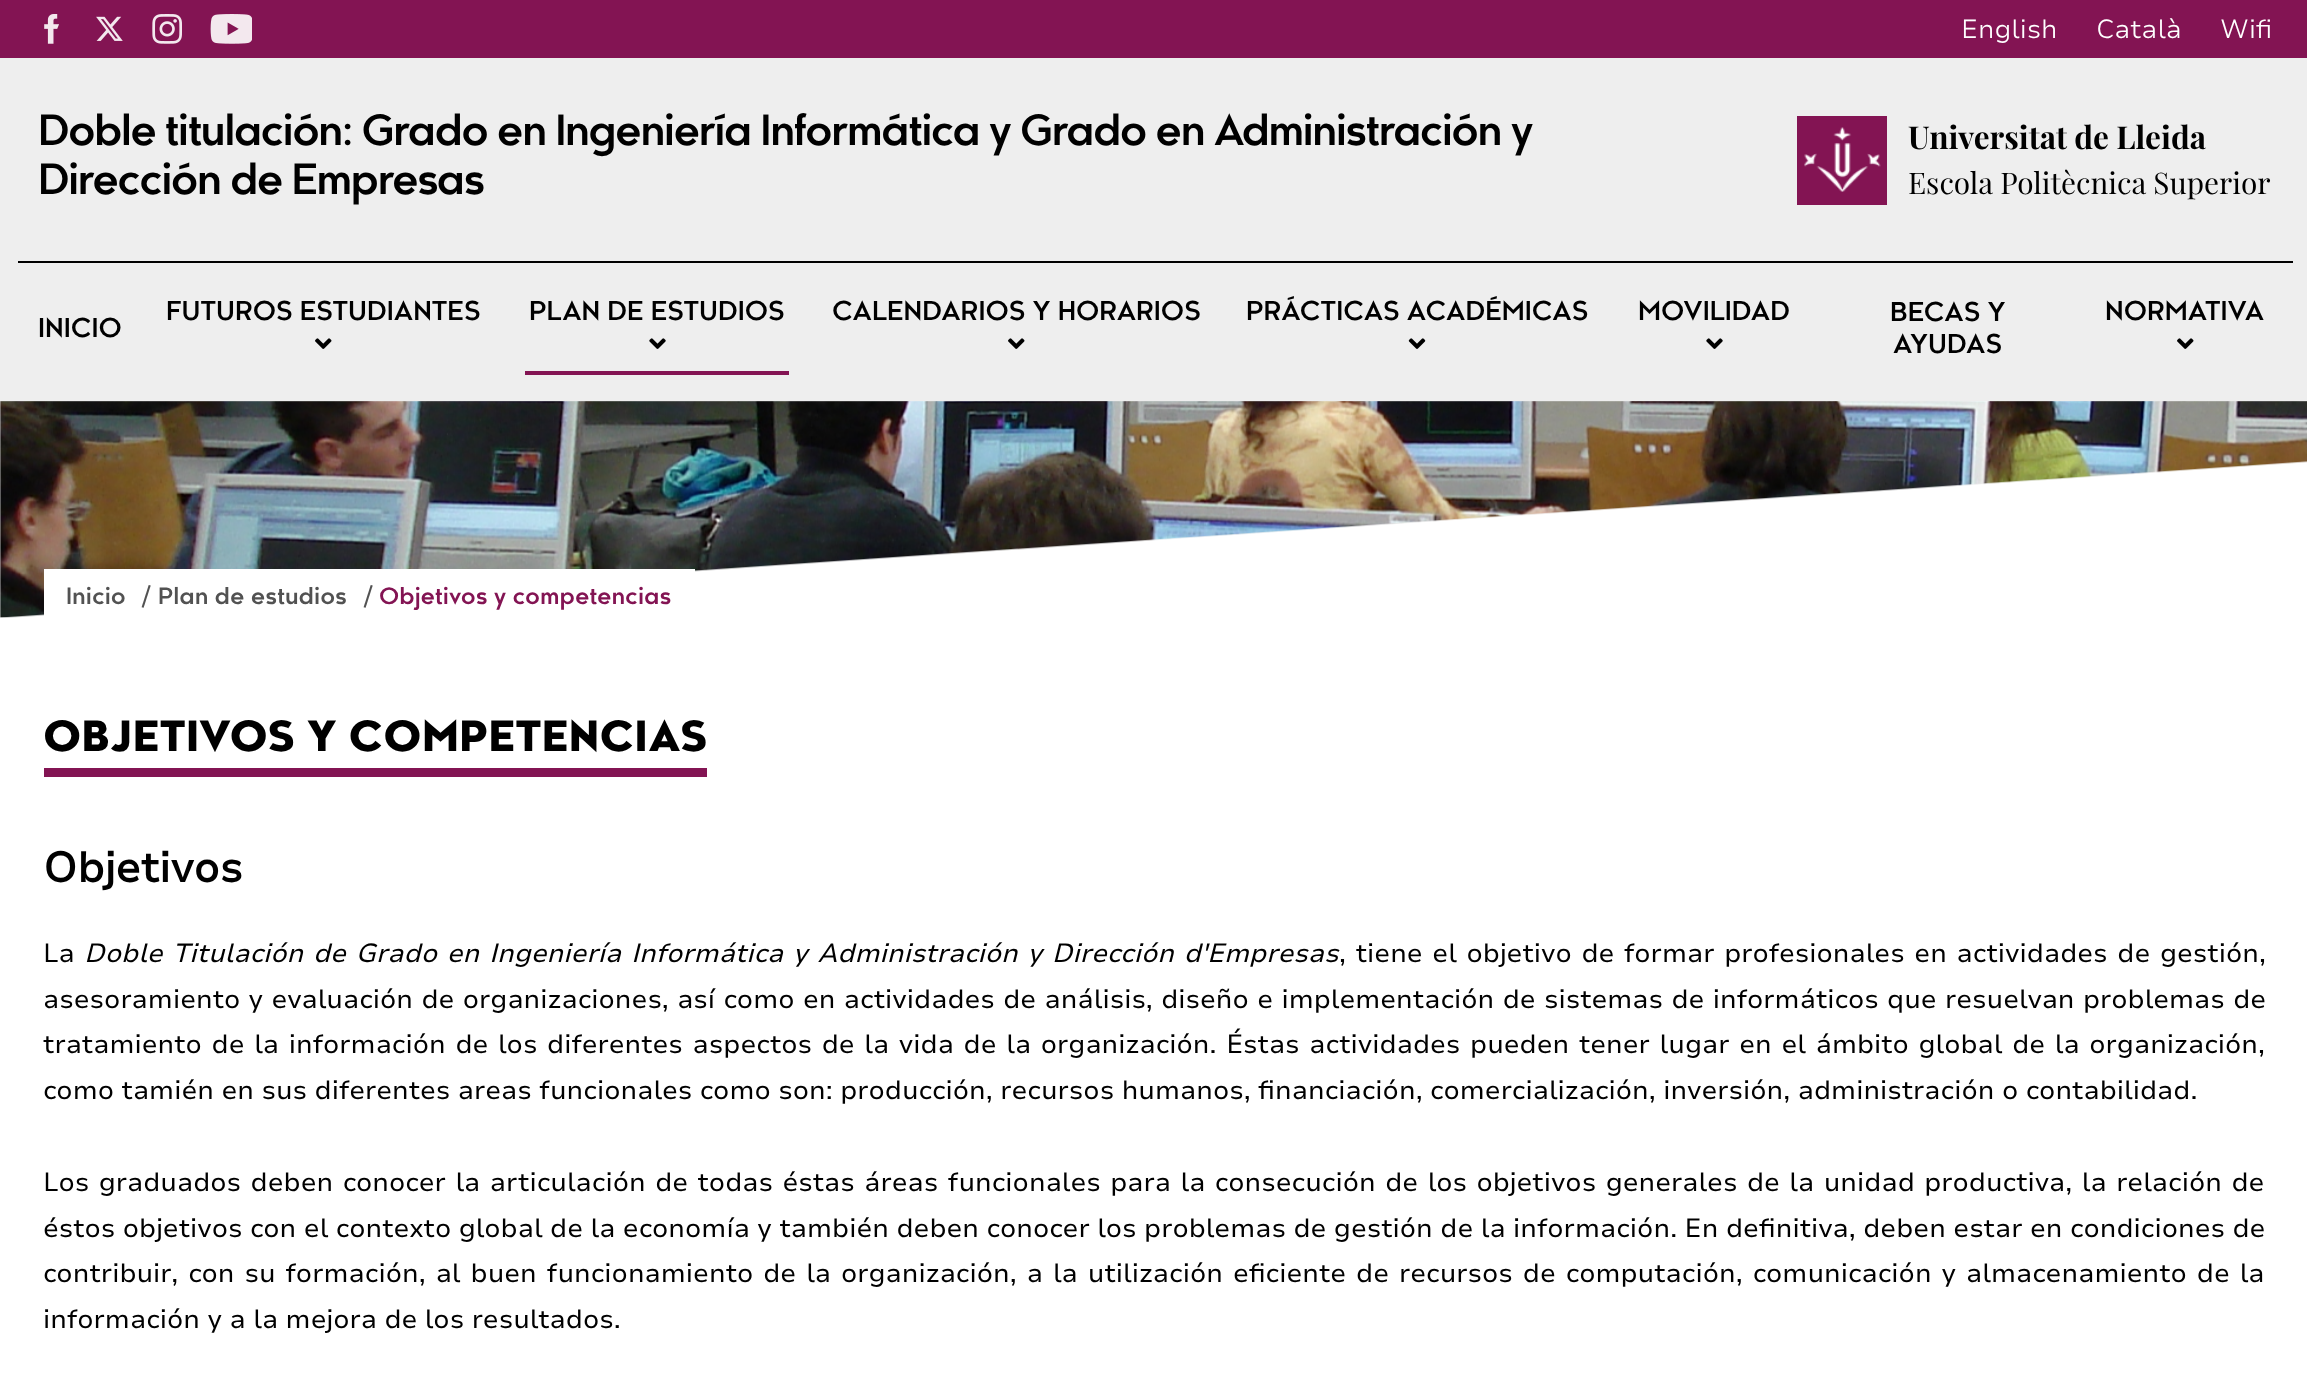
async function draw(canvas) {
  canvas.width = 2307
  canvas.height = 1379
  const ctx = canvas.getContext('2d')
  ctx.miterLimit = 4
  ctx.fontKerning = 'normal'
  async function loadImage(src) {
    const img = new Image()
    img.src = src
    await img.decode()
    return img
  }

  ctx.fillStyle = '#fff'
  ctx.fillRect(0, 0, 2307, 1379)
  ctx.fillStyle = '#831453'
  ctx.fillRect(0, 0, 2307, 58)
  ctx.drawImage(await loadImage('image0.png'), 44, 14, 15, 30)
  ctx.drawImage(await loadImage('image1.png'), 96, 16, 27, 25)
  ctx.drawImage(await loadImage('image2.png'), 152, 14, 30, 30)
  ctx.drawImage(await loadImage('image3.png'), 210, 14, 42, 30)
  ctx.font = '300 26.25px Nunito Sans'
  ctx.fillStyle = '#fff'
  ctx.fillText('English', 1961, 38)
  ctx.fillText('Català', 2096, 38)
  ctx.fillText('Wifi', 2220, 38)
  ctx.fillStyle = '#eee'
  ctx.fillRect(0, 58, 2307, 343)
  ctx.letterSpacing = '-1.68px'
  ctx.font = 'bold 42px "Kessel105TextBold"'
  ctx.fillStyle = '#000'
  ctx.fillText('Doble titulación: Grado en Ingeniería Informática y Grado en Administración y', 38, 145)
  ctx.fillText('Dirección de Empresas', 38, 194)
  ctx.fillStyle = '#831453'
  ctx.fillRect(1797, 116, 90, 89)
  ctx.drawImage(await loadImage('image4.png'), 1804, 127, 77, 65)
  ctx.letterSpacing = '0px'
  ctx.font = 'bold 31.5px Playfair Display'
  ctx.fillStyle = '#000'
  ctx.fillText('Universitat de Lleida', 1908, 149)
  ctx.font = '29.75px Playfair Display'
  ctx.fillText('Escola Politècnica Superior', 1908, 194)
  ctx.fillRect(18, 261, 2275, 2)
  ctx.font = 'bold 26.25px "Kessel105TextBold"'
  ctx.fillText('INICIO', 38, 337)
  ctx.fillText('FUTUROS ESTUDIANTES', 166, 320)
  ctx.drawImage(await loadImage('image5.png'), 315, 338, 17, 11)
  ctx.fillText('PLAN DE ESTUDIOS', 529, 320)
  ctx.drawImage(await loadImage('image6.png'), 649, 338, 17, 11)
  ctx.fillStyle = '#831453'
  ctx.fillRect(525, 371, 264, 4)
  ctx.fillStyle = '#000'
  ctx.fillText('CALENDARIOS Y HORARIOS', 832, 320)
  ctx.drawImage(await loadImage('image5.png'), 1008, 338, 17, 11)
  ctx.fillText('PRÁCTICAS ACADÉMICAS', 1246, 320)
  ctx.drawImage(await loadImage('image7.png'), 1408, 338, 18, 11)
  ctx.fillText('MOVILIDAD', 1638, 320)
  ctx.drawImage(await loadImage('image6.png'), 1706, 338, 17, 11)
  ctx.fillText('BECAS Y', 1890, 321)
  ctx.fillText('AYUDAS', 1893, 353)
  ctx.fillText('NORMATIVA', 2105, 320)
  ctx.drawImage(await loadImage('image5.png'), 2177, 338, 17, 11)
  ctx.fillStyle = '#eee'
  ctx.beginPath()
  ctx.moveTo(0, 401)
  ctx.lineTo(0, 618)
  ctx.lineTo(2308, 462)
  ctx.lineTo(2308, 401)
  ctx.closePath()
  ctx.fill()
  ctx.drawImage(await loadImage('image8.png'), 0, 401, 2307, 217)
  ctx.fillStyle = '#fff'
  ctx.fillRect(44, 569, 651, 47)
  ctx.font = 'bold 22.75px "Kessel105TextBold"'
  ctx.fillStyle = '#525252'
  ctx.fillText('Inicio', 66, 604)
  ctx.font = '28px Nunito Sans'
  ctx.fillText('/', 142, 606)
  ctx.font = 'bold 22.75px "Kessel105TextBold"'
  ctx.fillText('Plan de estudios', 158, 604)
  ctx.font = '28px Nunito Sans'
  ctx.fillText('/', 364, 606)
  ctx.font = 'bold 22.75px "Kessel105TextBold"'
  ctx.fillStyle = '#831453'
  ctx.fillText('Objetivos y competencias', 379, 604)
  ctx.fillRect(44, 768, 663, 9)
  ctx.font = '900 42px "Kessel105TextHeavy"'
  ctx.fillStyle = '#000'
  ctx.fillText('OBJETIVOS Y COMPETENCIAS', 43, 751)
  ctx.font = 'bold 42px Nunito Sans'
  ctx.fillText('Objetivos', 43, 882)
  ctx.font = '26.25px Nunito Sans'
  ctx.fillText('La', 43, 962)
  ctx.wordSpacing = '2.2px'
  ctx.font = 'italic 26.25px Nunito Sans'
  ctx.fillText('Doble Titulación de Grado en Ingeniería Informática y Administración y Dirección d\'Empresas', 84, 962)
  ctx.font = '26.25px Nunito Sans'
  ctx.fillText(', tiene el objetivo de formar profesionales en actividades de gestión,', 1339, 962)
  ctx.wordSpacing = '0.9px'
  ctx.fillText('asesoramiento y evaluación de organizaciones, así como en actividades de análisis, diseño e implementación de sistemas de informáticos que resuelvan problemas de', 43, 1008)
  ctx.wordSpacing = '2.2px'
  ctx.fillText('tratamiento de la información de los diferentes aspectos de la vida de la organización. Éstas actividades pueden tener lugar en el ámbito global de la organización,', 43, 1053)
  ctx.wordSpacing = '0px'
  ctx.fillText('como tamién en sus diferentes areas funcionales como son: producción, recursos humanos, financiación, comercialización, inversión, administración o contabilidad.', 43, 1099)
  ctx.wordSpacing = '2px'
  ctx.fillText('Los graduados deben conocer la articulación de todas éstas áreas funcionales para la consecución de los objetivos generales de la unidad productiva, la relación de', 43, 1191)
  ctx.wordSpacing = '0px'
  ctx.fillText('éstos objetivos con el contexto global de la economía y también deben conocer los problemas de gestión de la información. En definitiva, deben estar en condiciones de', 43, 1237)
  ctx.wordSpacing = '2.5px'
  ctx.fillText('contribuir, con su formación, al buen funcionamiento de la organización, a la utilización eficiente de recursos de computación, comunicación y almacenamiento de la', 43, 1282)
  ctx.wordSpacing = '0px'
  ctx.fillText('información y a la mejora de los resultados.', 43, 1328)
}

draw(document.querySelector('canvas'))
